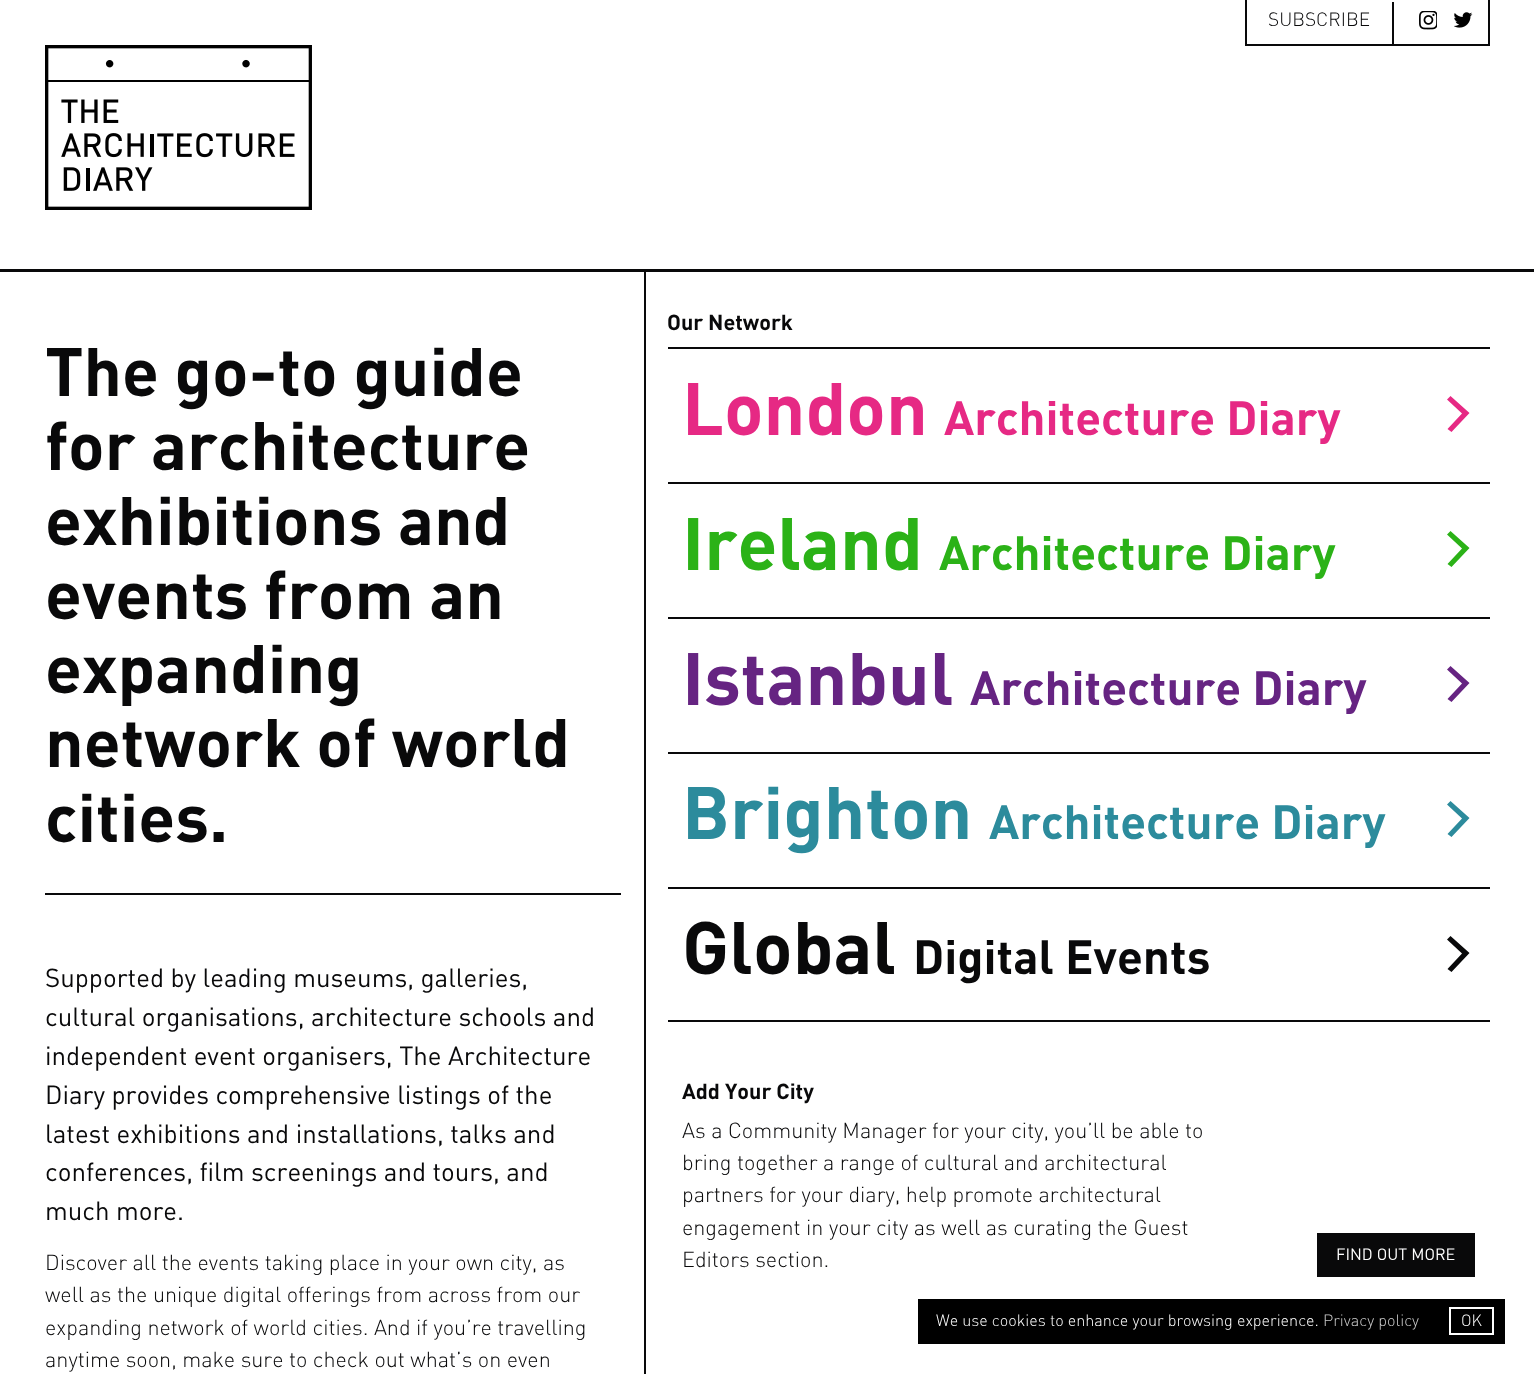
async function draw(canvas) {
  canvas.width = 1534
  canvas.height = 1374
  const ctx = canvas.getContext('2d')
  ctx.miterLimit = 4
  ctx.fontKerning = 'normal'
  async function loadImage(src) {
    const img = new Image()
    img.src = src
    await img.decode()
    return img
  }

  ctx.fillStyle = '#fff'
  ctx.fillRect(0, 0, 1534, 1374)
  ctx.fillStyle = '#09090a'
  ctx.fillRect(1488, 0, 2, 45)
  ctx.fillRect(1245, 44, 245, 2)
  ctx.fillRect(1245, 0, 2, 45)
  ctx.fillRect(1392, 2, 2, 42)
  ctx.font = '300 19px DIN'
  ctx.fillText('SUBSCRIBE', 1268, 26)
  ctx.drawImage(await loadImage('image0.png'), 1419, 11, 18, 19)
  ctx.drawImage(await loadImage('image1.png'), 1454, 12, 19, 16)
  ctx.fillRect(0, 269, 1534, 3)
  ctx.drawImage(await loadImage('image2.png'), 45, 45, 267, 165)
  ctx.font = 'bold 67.5px DIN'
  ctx.fillText('The go-to guide', 45, 396)
  ctx.fillText('for architecture', 45, 470)
  ctx.fillText('exhibitions and', 45, 545)
  ctx.fillText('events from an', 45, 619)
  ctx.fillText('expanding', 45, 693)
  ctx.fillText('network of world', 45, 767)
  ctx.fillText('cities.', 45, 842)
  ctx.fillRect(45, 893, 576, 2)
  ctx.font = '25.9px DIN'
  ctx.fillText('Supported by leading museums, galleries,', 45, 987)
  ctx.fillText('cultural organisations, architecture schools and', 45, 1026)
  ctx.fillText('independent event organisers, The Architecture', 45, 1065)
  ctx.fillText('Diary provides comprehensive listings of the', 45, 1104)
  ctx.fillText('latest exhibitions and installations, talks and', 45, 1143)
  ctx.fillText('conferences, film screenings and tours, and', 45, 1181)
  ctx.fillText('much more.', 45, 1220)
  ctx.font = '300 21.6px DIN'
  ctx.fillText('Discover all the events taking place in your own city, as', 45, 1270)
  ctx.fillText('well as the unique digital offerings from across from our', 45, 1302)
  ctx.fillText('expanding network of world cities. And if you’re travelling', 45, 1335)
  ctx.fillText('anytime soon, make sure to check out what’s on even', 45, 1367)
  ctx.fillRect(644, 272, 2, 1102)
  ctx.fillRect(668, 347, 822, 2)
  ctx.font = 'bold 21.6px DIN'
  ctx.fillText('Our Network', 667, 330)
  ctx.fillRect(668, 482, 822, 2)
  ctx.font = 'bold 73px DIN'
  ctx.fillStyle = '#e62984'
  ctx.fillText('London', 682, 435)
  ctx.font = 'bold 47.4px DIN'
  ctx.fillText('Architecture Diary', 944, 435)
  ctx.beginPath()
  ctx.moveTo(1451.5, 432)
  ctx.lineTo(1469.5, 413)
  ctx.lineTo(1450.5, 396)
  ctx.lineTo(1447, 399.5)
  ctx.lineTo(1462, 413.5)
  ctx.lineTo(1447.5, 429)
  ctx.closePath()
  ctx.fill()
  ctx.fillStyle = '#09090a'
  ctx.fillRect(668, 617, 822, 2)
  ctx.font = 'bold 73px DIN'
  ctx.fillStyle = '#2bb217'
  ctx.fillText('Ireland', 682, 570)
  ctx.font = 'bold 47.4px DIN'
  ctx.fillText('Architecture Diary', 939, 570)
  ctx.beginPath()
  ctx.moveTo(1451.5, 567)
  ctx.lineTo(1469.5, 548)
  ctx.lineTo(1450.5, 531)
  ctx.lineTo(1447, 534.5)
  ctx.lineTo(1462, 548.5)
  ctx.lineTo(1447.5, 564)
  ctx.closePath()
  ctx.fill()
  ctx.fillStyle = '#09090a'
  ctx.fillRect(668, 752, 822, 2)
  ctx.font = 'bold 73px DIN'
  ctx.fillStyle = '#662482'
  ctx.fillText('Istanbul', 682, 705)
  ctx.font = 'bold 47.4px DIN'
  ctx.fillText('Architecture Diary', 970, 705)
  ctx.beginPath()
  ctx.moveTo(1451.5, 702)
  ctx.lineTo(1469.5, 683)
  ctx.lineTo(1450.5, 666)
  ctx.lineTo(1447, 669.5)
  ctx.lineTo(1462, 683.5)
  ctx.lineTo(1447.5, 699)
  ctx.closePath()
  ctx.fill()
  ctx.fillStyle = '#09090a'
  ctx.fillRect(668, 887, 822, 2)
  ctx.font = 'bold 73px DIN'
  ctx.fillStyle = '#2c8b9c'
  ctx.fillText('Brighton', 682, 839)
  ctx.font = 'bold 47.4px DIN'
  ctx.fillText('Architecture Diary', 989, 839)
  ctx.beginPath()
  ctx.moveTo(1451.5, 837)
  ctx.lineTo(1469.5, 818)
  ctx.lineTo(1450.5, 801)
  ctx.lineTo(1447, 804.5)
  ctx.lineTo(1462, 818.5)
  ctx.lineTo(1447.5, 834)
  ctx.closePath()
  ctx.fill()
  ctx.fillStyle = '#09090a'
  ctx.fillRect(668, 1020, 822, 2)
  ctx.font = 'bold 73px DIN'
  ctx.fillText('Global', 682, 974)
  ctx.font = 'bold 47.4px DIN'
  ctx.fillText('Digital Events', 913, 974)
  ctx.beginPath()
  ctx.moveTo(1451.5, 972)
  ctx.lineTo(1469.5, 953)
  ctx.lineTo(1450.5, 936)
  ctx.lineTo(1447, 939.5)
  ctx.lineTo(1462, 953.5)
  ctx.lineTo(1447.5, 969)
  ctx.closePath()
  ctx.fill()
  ctx.font = 'bold 21.6px DIN'
  ctx.fillText('Add Your City', 682, 1099)
  ctx.font = '300 21.6px DIN'
  ctx.fillText('As a Community Manager for your city, you’ll be able to', 682, 1138)
  ctx.fillText('bring together a range of cultural and architectural', 682, 1170)
  ctx.fillText('partners for your diary, help promote architectural', 682, 1202)
  ctx.fillText('engagement in your city as well as curating the Guest', 682, 1235)
  ctx.fillText('Editors section.', 682, 1267)
  ctx.fillRect(1317, 1233, 158, 44)
  ctx.font = '16.2px DIN'
  ctx.fillStyle = '#fff'
  ctx.fillText('FIND OUT MORE', 1336, 1260)
  ctx.fillStyle = '#000'
  ctx.fillRect(918, 1299, 587, 45)
  ctx.font = '300 16.2px DIN'
  ctx.fillStyle = '#fff'
  ctx.fillText('We use cookies to enhance your browsing experience.', 936, 1326)
  ctx.fillStyle = '#ccc'
  ctx.fillText('Privacy policy', 1323, 1326)
  ctx.strokeStyle = '#fff'
  ctx.lineWidth = 2
  ctx.strokeRect(1450, 1308, 43, 26)
  ctx.fillStyle = '#fff'
  ctx.fillText('OK', 1461, 1326)
}

draw(document.querySelector('canvas'))
